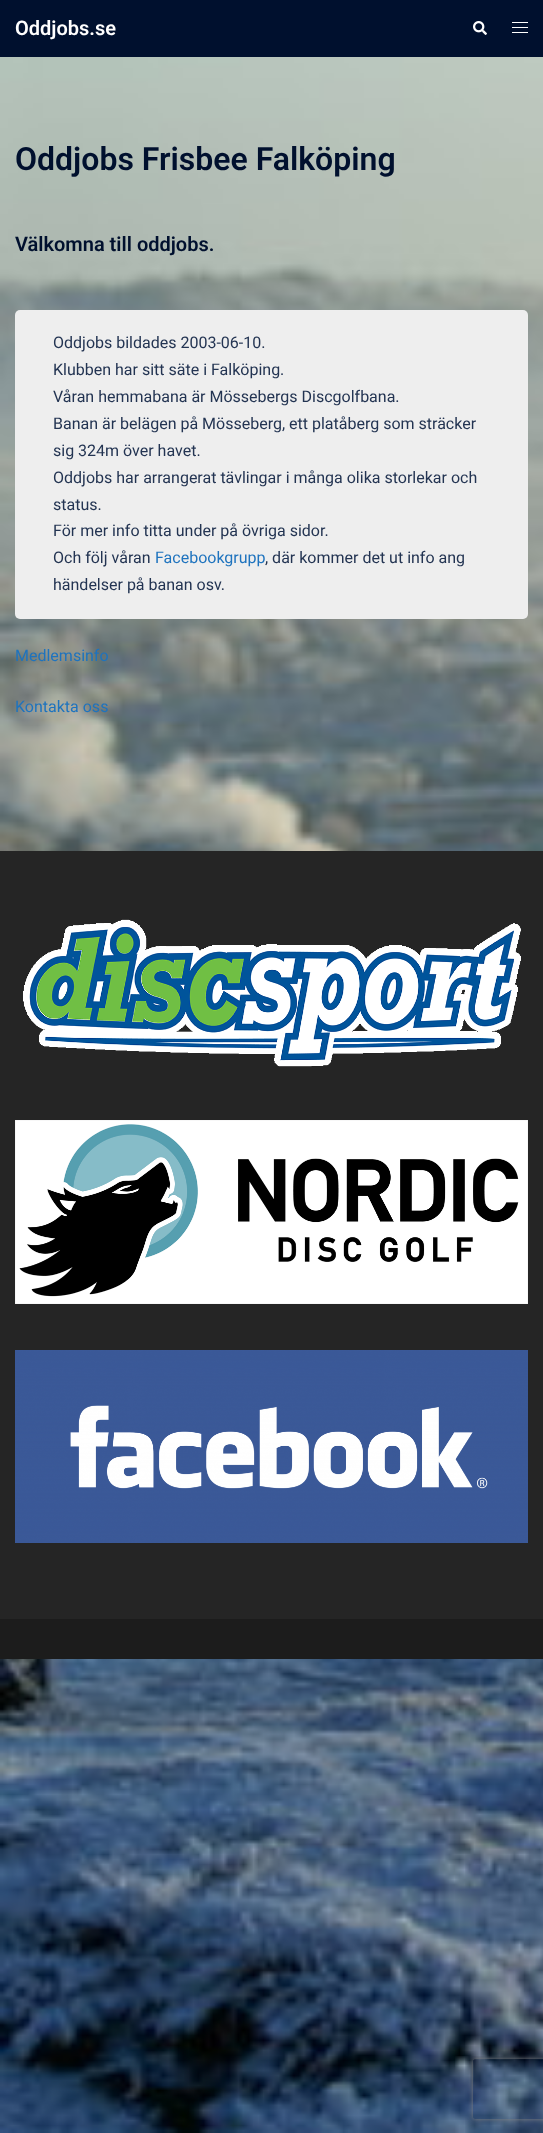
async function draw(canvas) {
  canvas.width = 543
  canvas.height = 2133
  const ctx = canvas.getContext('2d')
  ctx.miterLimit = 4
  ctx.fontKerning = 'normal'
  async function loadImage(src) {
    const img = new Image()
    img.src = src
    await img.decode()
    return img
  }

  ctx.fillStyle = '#fff'
  ctx.fillRect(0, 0, 543, 2133)
  ctx.drawImage(await loadImage('image0.png'), 0, 57, 543, 2076)
  ctx.fillStyle = '#00102e'
  ctx.fillRect(0, 0, 543, 57)
  ctx.font = '600 20px Roboto'
  ctx.fillStyle = '#fff'
  ctx.fillText('Oddjobs.se', 15, 35)
  ctx.drawImage(await loadImage('image1.png'), 473, 21, 14, 14)
  ctx.fillRect(512, 22, 16, 1)
  ctx.fillRect(512, 27, 16, 1)
  ctx.fillRect(512, 32, 16, 1)
  ctx.font = '600 32px Roboto'
  ctx.fillStyle = '#00102e'
  ctx.fillText('Oddjobs Frisbee Falköping', 15, 170)
  ctx.font = '600 20px Roboto'
  ctx.fillText('Välkomna till oddjobs.', 15, 251)
  ctx.fillStyle = '#eee'
  ctx.beginPath()
  ctx.roundRect(15, 310, 513, 309, 5)
  ctx.fill()
  ctx.font = '16px Roboto'
  ctx.fillStyle = '#233452'
  ctx.fillText('Oddjobs bildades 2003-06-10.', 53, 348)
  ctx.fillText('Klubben har sitt säte i Falköping.', 53, 375)
  ctx.fillText('Våran hemmabana är Mössebergs Discgolfbana.', 53, 402)
  ctx.fillText('Banan är belägen på Mösseberg, ett platåberg som sträcker', 53, 429)
  ctx.fillText('sig 324m över havet.', 53, 456)
  ctx.fillText('Oddjobs har arrangerat tävlingar i många olika storlekar och', 53, 483)
  ctx.fillText('status.', 53, 510)
  ctx.fillText('För mer info titta under på övriga sidor.', 53, 536)
  ctx.fillText('Och följ våran', 53, 563)
  ctx.fillStyle = '#1e73be'
  ctx.fillText('Facebookgrupp', 155, 563)
  ctx.fillStyle = '#233452'
  ctx.fillText(', där kommer det ut info ang', 265, 563)
  ctx.fillText('händelser på banan osv.', 53, 590)
  ctx.fillStyle = '#1e73be'
  ctx.fillText('Medlemsinfo', 15, 661)
  ctx.fillText('Kontakta oss', 15, 712)
  ctx.fillStyle = '#252525'
  ctx.fillRect(0, 851, 543, 768)
  ctx.drawImage(await loadImage('image2.png'), 23, 919, 498, 148)
  ctx.drawImage(await loadImage('image3.png'), 15, 1120, 513, 184)
  ctx.drawImage(await loadImage('image4.png'), 15, 1350, 513, 193)
  ctx.fillStyle = '#1c1c1c'
  ctx.fillRect(0, 1619, 543, 40)
  ctx.save()
  ctx.beginPath()
  ctx.moveTo(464, 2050)
  ctx.lineTo(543, 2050)
  ctx.lineTo(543, 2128)
  ctx.lineTo(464, 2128)
  ctx.closePath()
  ctx.moveTo(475, 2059)
  ctx.lineTo(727, 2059)
  ctx.bezierCurveTo(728, 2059, 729, 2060, 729, 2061)
  ctx.lineTo(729, 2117)
  ctx.bezierCurveTo(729, 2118, 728, 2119, 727, 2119)
  ctx.lineTo(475, 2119)
  ctx.bezierCurveTo(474, 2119, 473, 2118, 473, 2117)
  ctx.lineTo(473, 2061)
  ctx.bezierCurveTo(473, 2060, 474, 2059, 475, 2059)
  ctx.closePath()
  ctx.clip('evenodd')
  ctx.fillStyle = '#808080'
  ctx.filter = 'blur(2.5px)'
  ctx.beginPath()
  ctx.roundRect(473, 2059, 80, 60, 2)
  ctx.fill()
  ctx.filter = 'none'
  ctx.restore()
}

draw(document.querySelector('canvas'))
